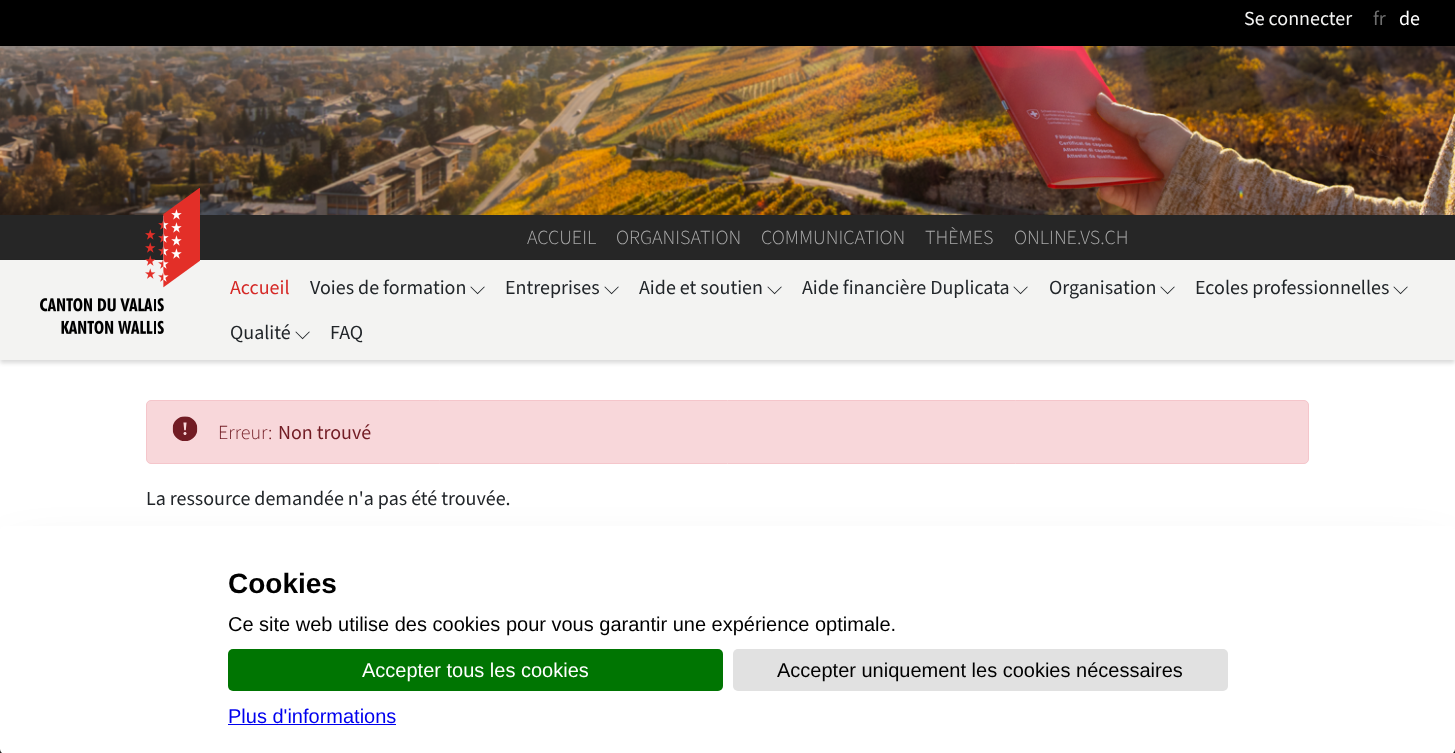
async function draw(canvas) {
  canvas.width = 1455
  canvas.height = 753
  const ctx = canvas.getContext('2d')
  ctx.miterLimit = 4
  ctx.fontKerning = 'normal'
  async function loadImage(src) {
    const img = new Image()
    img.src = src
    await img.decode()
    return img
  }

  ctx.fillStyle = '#fff'
  ctx.fillRect(0, 0, 1455, 753)
  ctx.fillStyle = '#000'
  ctx.fillRect(0, 0, 1455, 46)
  ctx.font = '20px "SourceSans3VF"'
  ctx.fillStyle = '#f3f3f2'
  ctx.fillText('Se connecter', 1244, 25)
  ctx.fillStyle = '#6e6e6e'
  ctx.fillText('fr', 1373, 25)
  ctx.fillStyle = '#fff'
  ctx.fillText('de', 1399, 25)
  ctx.drawImage(await loadImage('image0.png'), 0, 46, 1455, 169)
  ctx.fillStyle = '#262626'
  ctx.fillRect(0, 215, 1455, 45)
  ctx.fillStyle = '#00000026'
  ctx.filter = 'blur(2px)'
  ctx.beginPath()
  ctx.rect(0, 263, 1455, 100)
  ctx.fill()
  ctx.filter = 'none'
  ctx.fillStyle = '#f3f3f2'
  ctx.fillRect(0, 260, 1455, 100)
  ctx.drawImage(await loadImage('image1.png'), 40, 188, 160, 146)
  ctx.font = '300 20px "SourceSans3VF"'
  ctx.fillStyle = '#aaa'
  ctx.fillText('ACCUEIL', 527, 244)
  ctx.fillText('ORGANISATION', 616, 244)
  ctx.fillText('COMMUNICATION', 761, 244)
  ctx.fillText('THÈMES', 925, 244)
  ctx.fillText('ONLINE.VS.CH', 1014, 244)
  ctx.font = '20px "SourceSans3VF"'
  ctx.fillStyle = '#d52826'
  ctx.fillText('Accueil', 230, 294)
  ctx.fillStyle = '#212529'
  ctx.fillText('Voies de formation', 310, 294)
  ctx.font = '20px FreeSerif'
  ctx.fillText('⌵', 470, 294)
  ctx.font = '20px "SourceSans3VF"'
  ctx.fillText('Entreprises', 505, 294)
  ctx.font = '20px FreeSerif'
  ctx.fillText('⌵', 604, 294)
  ctx.font = '20px "SourceSans3VF"'
  ctx.fillText('Aide et soutien', 639, 294)
  ctx.font = '20px FreeSerif'
  ctx.fillText('⌵', 767, 294)
  ctx.font = '20px "SourceSans3VF"'
  ctx.fillText('Aide financière Duplicata', 802, 294)
  ctx.font = '20px FreeSerif'
  ctx.fillText('⌵', 1013, 294)
  ctx.font = '20px "SourceSans3VF"'
  ctx.fillText('Organisation', 1049, 294)
  ctx.font = '20px FreeSerif'
  ctx.fillText('⌵', 1160, 294)
  ctx.font = '20px "SourceSans3VF"'
  ctx.fillText('Ecoles professionnelles', 1195, 294)
  ctx.font = '20px FreeSerif'
  ctx.fillText('⌵', 1393, 294)
  ctx.font = '20px "SourceSans3VF"'
  ctx.fillText('Qualité', 230, 339)
  ctx.font = '20px FreeSerif'
  ctx.fillText('⌵', 295, 339)
  ctx.font = '20px "SourceSans3VF"'
  ctx.fillText('FAQ', 330, 339)
  ctx.fillStyle = '#f8d7da'
  ctx.beginPath()
  ctx.roundRect(146.5, 400.5, 1162, 63, 4.5)
  ctx.fill()
  ctx.strokeStyle = '#f5c6cb'
  ctx.stroke()
  ctx.drawImage(await loadImage('image2.png'), 172, 416, 26, 25)
  ctx.font = '300 20px "SourceSans3VF"'
  ctx.fillStyle = '#721c24'
  ctx.fillText('Erreur:', 218, 439)
  ctx.font = '20px "SourceSans3VF"'
  ctx.fillText('Non trouvé', 278, 439)
  ctx.fillStyle = '#212529'
  ctx.fillText('La ressource demandée n\'a pas été trouvée.', 146, 505)
  ctx.fillStyle = '#262626'
  ctx.fillRect(0, 749, 1455, 4)
  ctx.fillStyle = '#00000040'
  ctx.filter = 'blur(31px)'
  ctx.beginPath()
  ctx.rect(15, 573, 1425, 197)
  ctx.fill()
  ctx.filter = 'none'
  ctx.fillStyle = '#fff'
  ctx.beginPath()
  ctx.roundRect(0, 526, 1455, 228, 5)
  ctx.fill()
  ctx.font = 'bold 28px Liberation Sans'
  ctx.fillStyle = '#000'
  ctx.fillText('Cookies', 228, 593)
  ctx.font = '20px Liberation Sans'
  ctx.fillText('Ce site web utilise des cookies pour vous garantir une expérience optimale.', 228, 631)
  ctx.fillStyle = '#007502'
  ctx.beginPath()
  ctx.roundRect(228, 649, 495, 42, 5)
  ctx.fill()
  ctx.fillStyle = '#fff'
  ctx.fillText('Accepter tous les cookies', 362, 677)
  ctx.fillStyle = '#e1e1e1'
  ctx.beginPath()
  ctx.roundRect(733, 649, 495, 42, 5)
  ctx.fill()
  ctx.fillStyle = '#000'
  ctx.fillText('Accepter uniquement les cookies nécessaires', 777, 677)
  ctx.fillStyle = '#00e'
  ctx.fillText('Plus d\'informations', 228, 723)
  ctx.fillRect(228, 724, 168, 1)
}

draw(document.querySelector('canvas'))
